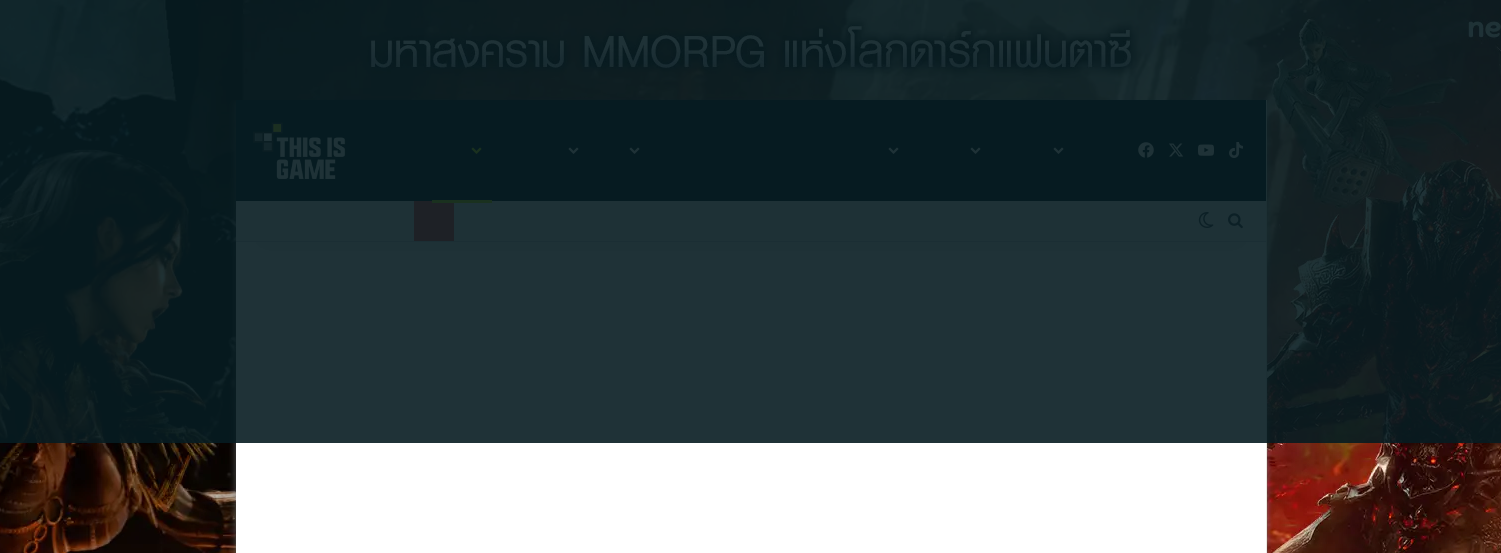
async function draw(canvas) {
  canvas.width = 1501
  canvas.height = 553
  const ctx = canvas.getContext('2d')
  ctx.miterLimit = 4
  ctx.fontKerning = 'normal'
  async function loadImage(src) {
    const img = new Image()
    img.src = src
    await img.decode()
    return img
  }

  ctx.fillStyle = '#fff'
  ctx.fillRect(0, 0, 1501, 553)
  ctx.drawImage(await loadImage('image0.png'), 0, 0, 1501, 553)
  ctx.save()
  ctx.beginPath()
  ctx.rect(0, 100, 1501, 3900)
  ctx.clip()
  ctx.fillStyle = '#ababab80'
  ctx.filter = 'blur(3.5px)'
  ctx.beginPath()
  ctx.rect(236, 101, 1030, 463)
  ctx.fill()
  ctx.filter = 'none'
  ctx.restore()
  ctx.fillRect(236, 242, 1030, 311)
  ctx.fillStyle = '#0000001a'
  ctx.filter = 'blur(10px)'
  ctx.beginPath()
  ctx.rect(256, 145, 990, 102)
  ctx.fill()
  ctx.filter = 'none'
  ctx.fillStyle = '#071c21'
  ctx.fillRect(236, 100, 1030, 101)
  ctx.drawImage(await loadImage('image1.png'), 253, 122, 93, 57)
  ctx.fillStyle = '#eff0f1'
  ctx.fillRect(236, 201, 1030, 40)
  ctx.fillStyle = '#f05555'
  ctx.fillRect(414, 201, 40, 40)
  ctx.fillStyle = '#caef0e'
  ctx.fillRect(432, 200, 60, 3)
  ctx.drawImage(await loadImage('image2.png'), 471, 147, 11, 7)
  ctx.drawImage(await loadImage('image3.png'), 568, 147, 11, 7)
  ctx.drawImage(await loadImage('image3.png'), 629, 147, 11, 7)
  ctx.drawImage(await loadImage('image3.png'), 888, 147, 11, 7)
  ctx.drawImage(await loadImage('image3.png'), 970, 147, 11, 7)
  ctx.drawImage(await loadImage('image3.png'), 1053, 147, 11, 7)
  ctx.drawImage(await loadImage('image4.png'), 1138, 142, 16, 16)
  ctx.drawImage(await loadImage('image5.png'), 1169, 143, 15, 14)
  ctx.drawImage(await loadImage('image6.png'), 1198, 144, 16, 12)
  ctx.drawImage(await loadImage('image7.png'), 1229, 142, 14, 16)
  ctx.fillStyle = '#d7d8d9'
  ctx.fillRect(236, 241, 1030, 1)
  ctx.drawImage(await loadImage('image8.png'), 1198, 212, 16, 16)
  ctx.drawImage(await loadImage('image9.png'), 1228, 213, 15, 16)
  ctx.fillStyle = '#071c21e6'
  ctx.fillRect(0, 0, 1501, 443)
}

draw(document.querySelector('canvas'))
